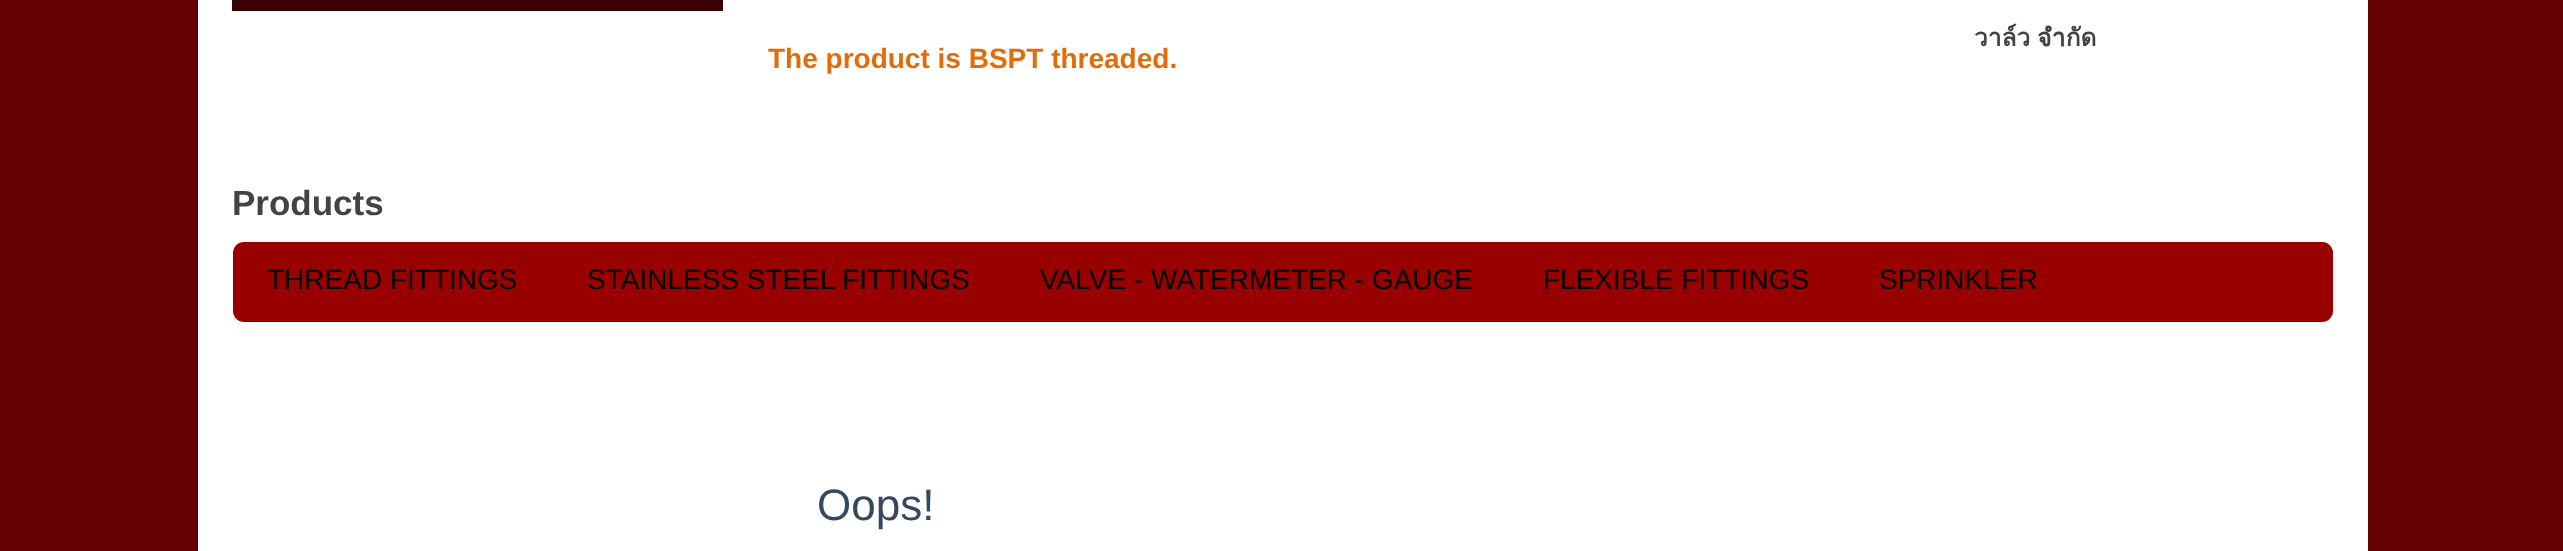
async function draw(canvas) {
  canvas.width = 2563
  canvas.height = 551
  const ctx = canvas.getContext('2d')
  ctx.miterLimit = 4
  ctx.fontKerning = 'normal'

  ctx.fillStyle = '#600'
  ctx.fillRect(0, 0, 2563, 551)
  ctx.fillStyle = '#fff'
  ctx.fillRect(198, 0, 2170, 551)
  ctx.fillStyle = '#380001'
  ctx.fillRect(232, 0, 491, 11)
  ctx.wordSpacing = '-1px'
  ctx.font = 'bold 24.5px Loma'
  ctx.fillStyle = '#434343'
  ctx.fillText('วาล์ว จำกัด', 1974, 46)
  ctx.wordSpacing = '0px'
  ctx.font = 'bold 28px Liberation Sans'
  ctx.fillStyle = '#e36c09'
  ctx.fillText('The product is BSPT threaded.', 768, 68)
  ctx.font = 'bold 35px Liberation Sans'
  ctx.fillStyle = '#434343'
  ctx.fillText('Products', 232, 215)
  ctx.fillStyle = '#900'
  ctx.beginPath()
  ctx.roundRect(233, 242, 2100, 80, 11)
  ctx.fill()
  ctx.font = '28px Liberation Sans'
  ctx.fillStyle = '#000'
  ctx.fillText('THREAD FITTINGS', 267, 289)
  ctx.fillText('STAINLESS STEEL FITTINGS', 587, 289)
  ctx.fillText('VALVE - WATERMETER - GAUGE', 1040, 289)
  ctx.fillText('FLEXIBLE FITTINGS', 1543, 289)
  ctx.fillText('SPRINKLER', 1879, 289)
  ctx.font = '44px Liberation Sans'
  ctx.fillStyle = '#34495e'
  ctx.fillText('Oops!', 817, 520)
}

draw(document.querySelector('canvas'))
